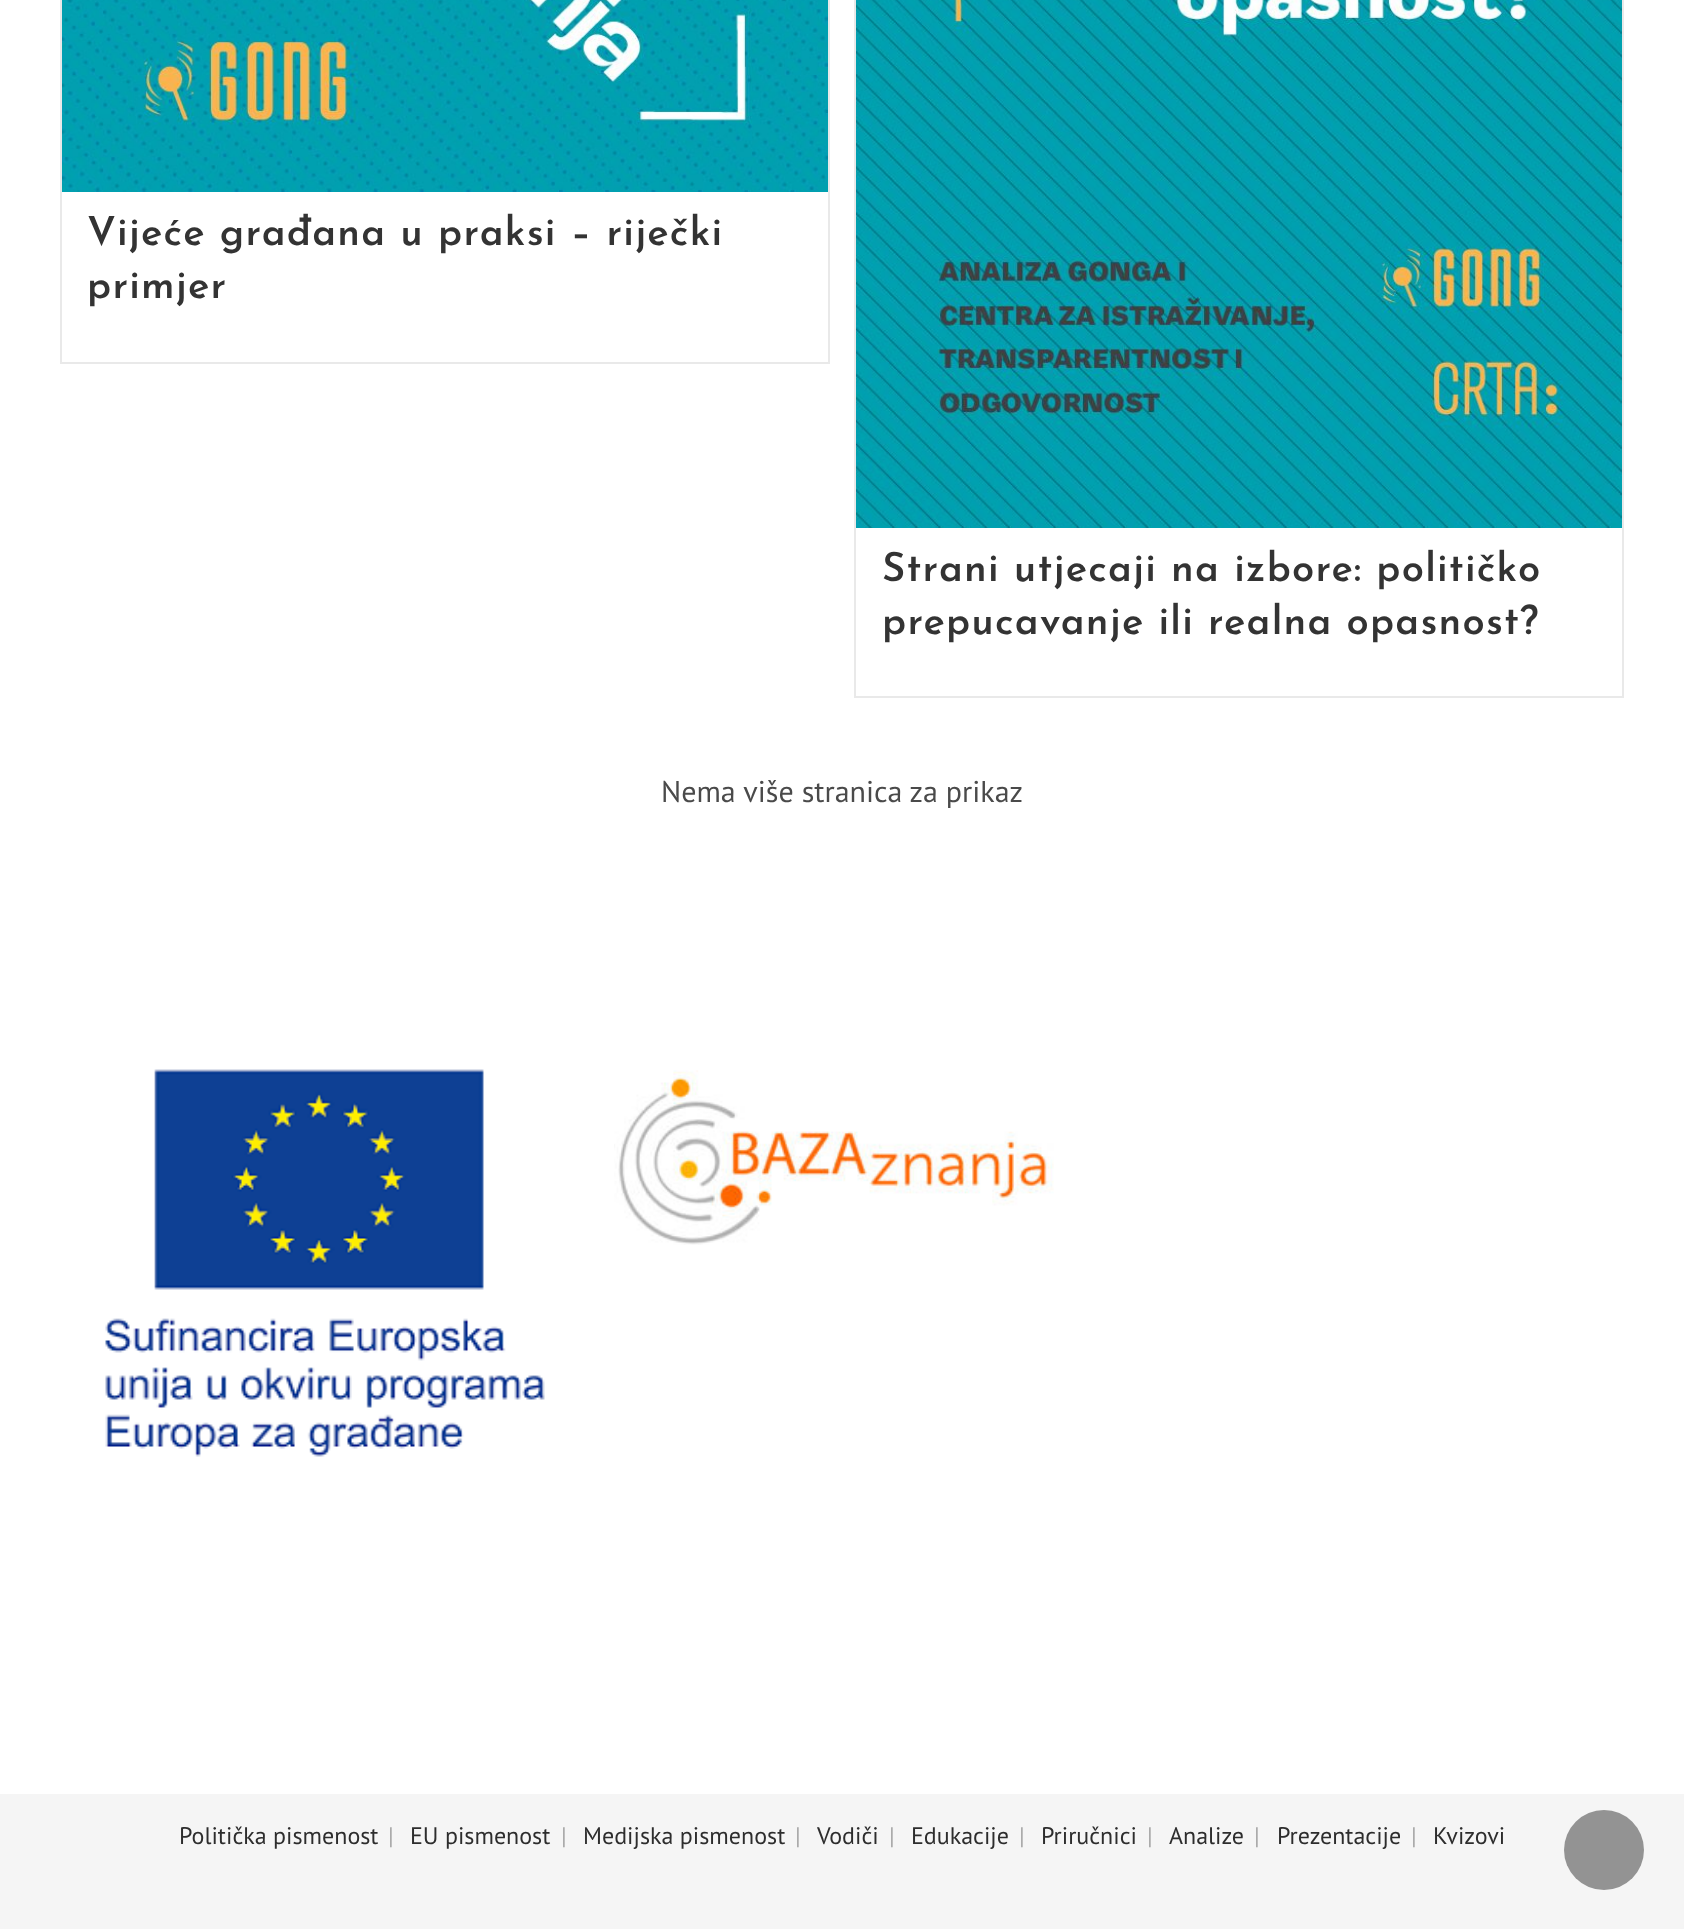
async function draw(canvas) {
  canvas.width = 1684
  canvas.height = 1929
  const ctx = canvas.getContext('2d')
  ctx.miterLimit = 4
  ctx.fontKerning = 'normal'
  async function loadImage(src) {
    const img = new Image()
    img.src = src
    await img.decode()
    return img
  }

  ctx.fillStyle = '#fff'
  ctx.fillRect(0, 0, 1684, 1929)
  ctx.strokeStyle = '#e9e9e9'
  ctx.lineWidth = 2
  ctx.strokeRect(61, -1, 768, 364)
  ctx.drawImage(await loadImage('image0.png'), 62, 0, 766, 192)
  ctx.letterSpacing = '1.2px'
  ctx.font = '600 40px Josefin Sans'
  ctx.fillStyle = '#333'
  ctx.fillText('Vijeće građana u praksi – riječki', 87, 245)
  ctx.fillText('primjer', 87, 298)
  ctx.strokeRect(855, -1, 768, 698)
  ctx.drawImage(await loadImage('image1.png'), 856, 0, 766, 528)
  ctx.fillText('Strani utjecaji na izbore: političko', 882, 581)
  ctx.fillText('prepucavanje ili realna opasnost?', 882, 634)
  ctx.letterSpacing = '0px'
  ctx.font = '30px PT Sans'
  ctx.fillStyle = '#4a4a4a'
  ctx.fillText('Nema više stranica za prikaz', 661, 802)
  ctx.drawImage(await loadImage('image2.png'), 105, 1069, 440, 388)
  ctx.drawImage(await loadImage('image3.png'), 614, 1070, 440, 175)
  ctx.fillStyle = '#f5f5f5'
  ctx.fillRect(0, 1794, 1684, 135)
  ctx.font = '24px PT Sans'
  ctx.fillStyle = '#2d2d2d'
  ctx.fillText('Politička pismenost', 179, 1844)
  ctx.fillStyle = '#a8a8a8'
  ctx.fillText('|', 388, 1844)
  ctx.fillStyle = '#2d2d2d'
  ctx.fillText('EU pismenost', 410, 1844)
  ctx.fillStyle = '#a8a8a8'
  ctx.fillText('|', 561, 1844)
  ctx.fillStyle = '#2d2d2d'
  ctx.fillText('Medijska pismenost', 583, 1844)
  ctx.fillStyle = '#a8a8a8'
  ctx.fillText('|', 795, 1844)
  ctx.fillStyle = '#2d2d2d'
  ctx.fillText('Vodiči', 817, 1844)
  ctx.fillStyle = '#a8a8a8'
  ctx.fillText('|', 889, 1844)
  ctx.fillStyle = '#2d2d2d'
  ctx.fillText('Edukacije', 911, 1844)
  ctx.fillStyle = '#a8a8a8'
  ctx.fillText('|', 1019, 1844)
  ctx.fillStyle = '#2d2d2d'
  ctx.fillText('Priručnici', 1041, 1844)
  ctx.fillStyle = '#a8a8a8'
  ctx.fillText('|', 1147, 1844)
  ctx.fillStyle = '#2d2d2d'
  ctx.fillText('Analize', 1169, 1844)
  ctx.fillStyle = '#a8a8a8'
  ctx.fillText('|', 1254, 1844)
  ctx.fillStyle = '#2d2d2d'
  ctx.fillText('Prezentacije', 1277, 1844)
  ctx.fillStyle = '#a8a8a8'
  ctx.fillText('|', 1411, 1844)
  ctx.fillStyle = '#2d2d2d'
  ctx.fillText('Kvizovi', 1433, 1844)
  ctx.fillStyle = '#939393'
  ctx.beginPath()
  ctx.arc(1604, 1850, 40, 0, 2 * Math.PI)
  ctx.fill()
}

draw(document.querySelector('canvas'))
